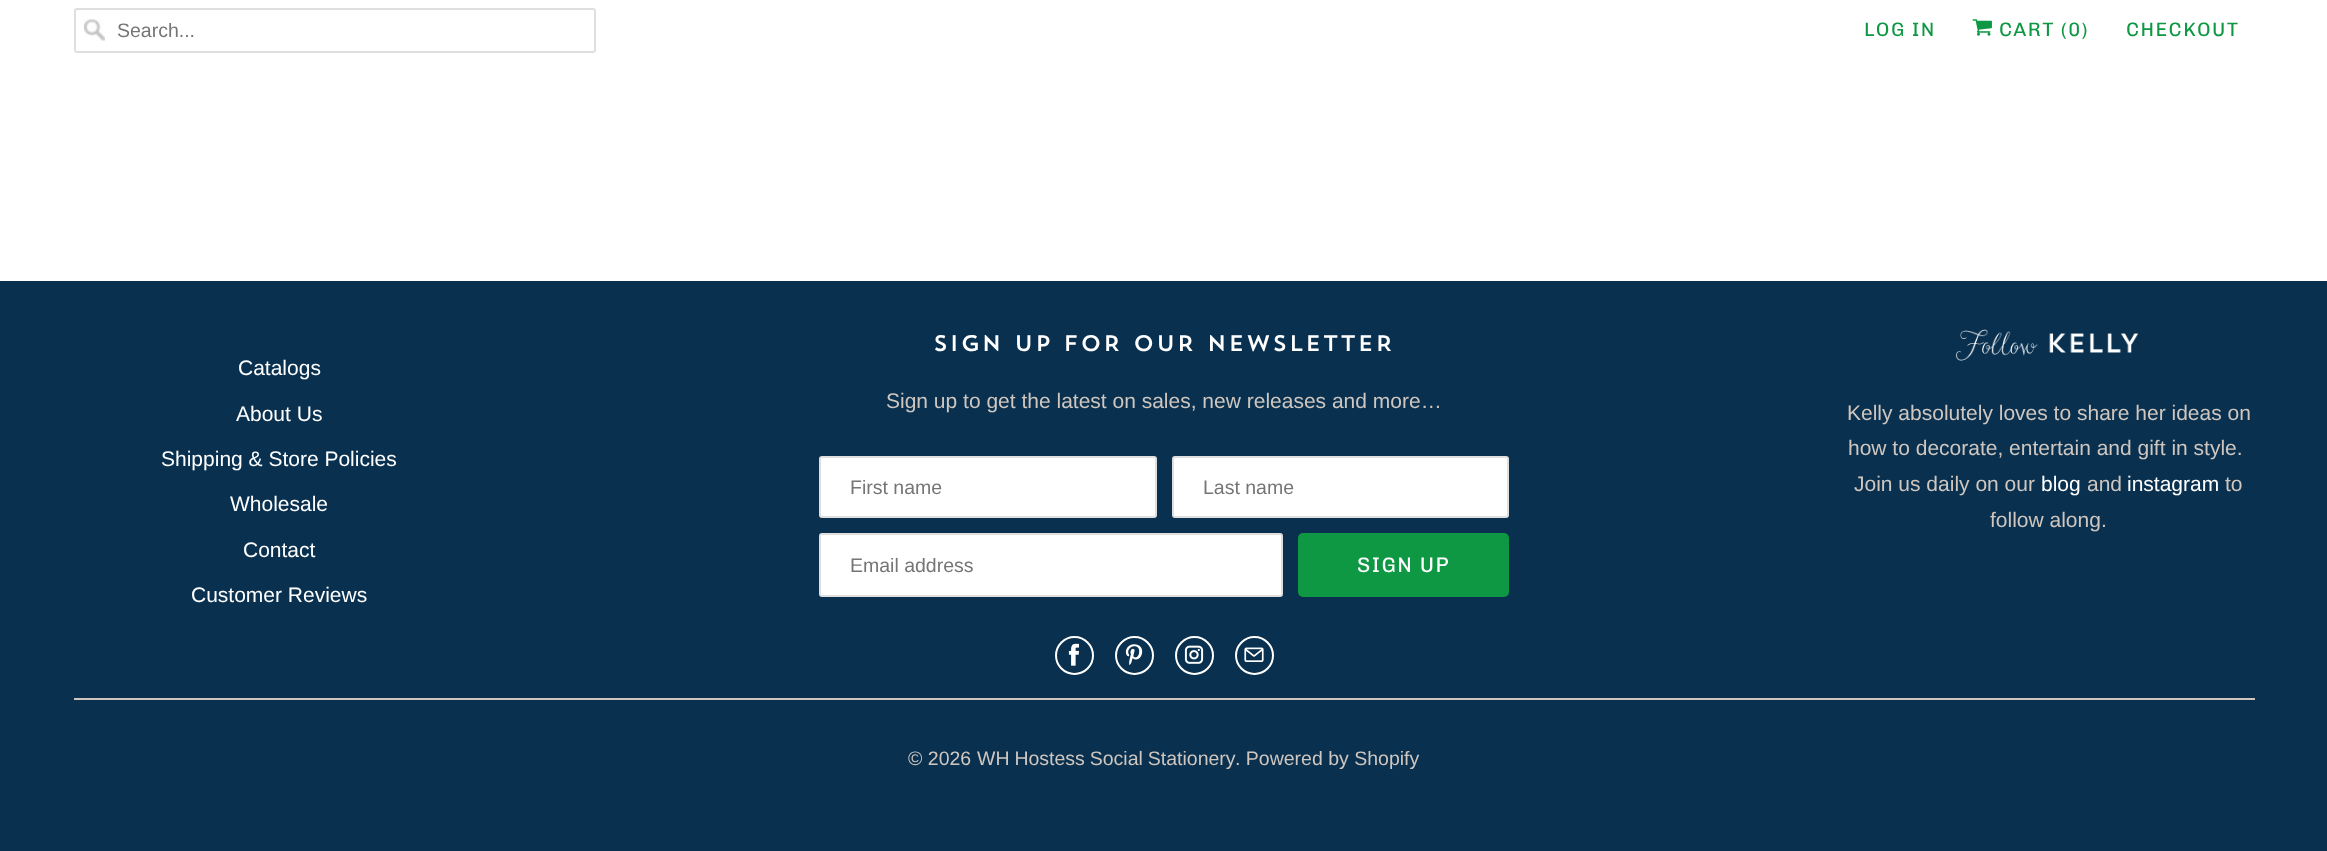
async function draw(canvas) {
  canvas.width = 2327
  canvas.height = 851
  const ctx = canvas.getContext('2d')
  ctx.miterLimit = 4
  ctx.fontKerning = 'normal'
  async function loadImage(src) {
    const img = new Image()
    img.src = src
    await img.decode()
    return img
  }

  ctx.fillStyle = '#fff'
  ctx.fillRect(0, 0, 2327, 851)
  ctx.drawImage(await loadImage('image0.png'), 84, 19, 21, 22)
  ctx.beginPath()
  ctx.roundRect(75, 9, 520, 43, 2)
  ctx.strokeStyle = '#dfdfdf'
  ctx.lineWidth = 2
  ctx.stroke()
  ctx.font = '19.5px Liberation Sans'
  ctx.fillStyle = '#757575'
  ctx.fillText('Search...', 117, 37)
  ctx.letterSpacing = '1.5px'
  ctx.font = '19.5px Chivo'
  ctx.fillStyle = '#0f9843'
  ctx.fillText('LOG IN', 1864, 36)
  ctx.drawImage(await loadImage('image1.png'), 1972, 19, 20, 17)
  ctx.fillText('CART (0)', 1999, 36)
  ctx.fillText('CHECKOUT', 2126, 36)
  ctx.fillStyle = '#09304f'
  ctx.fillRect(0, 281, 2327, 570)
  ctx.letterSpacing = '0px'
  ctx.font = '21px Liberation Sans'
  ctx.fillStyle = '#fff'
  ctx.fillText('Catalogs', 238, 375)
  ctx.fillText('About Us', 236, 421)
  ctx.fillText('Shipping & Store Policies', 161, 466)
  ctx.fillText('Wholesale', 230, 511)
  ctx.fillText('Contact', 243, 557)
  ctx.fillText('Customer Reviews', 191, 602)
  ctx.letterSpacing = '1.5px'
  ctx.font = '200 22.5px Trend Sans'
  ctx.fillText('SIGN UP FOR OUR NEWSLETTER', 933, 351)
  ctx.letterSpacing = '0px'
  ctx.font = '21px Liberation Sans'
  ctx.fillStyle = '#cec6bf'
  ctx.fillText('Sign up to get the latest on sales, new releases and more…', 886, 408)
  ctx.fillStyle = '#fff'
  ctx.beginPath()
  ctx.roundRect(820, 457, 336, 60, 2)
  ctx.fill()
  ctx.stroke()
  ctx.font = '19.5px Liberation Sans'
  ctx.fillStyle = '#757575'
  ctx.fillText('First name', 850, 494)
  ctx.fillStyle = '#fff'
  ctx.beginPath()
  ctx.roundRect(1173, 457, 335, 60, 2)
  ctx.fill()
  ctx.stroke()
  ctx.fillStyle = '#757575'
  ctx.fillText('Last name', 1203, 494)
  ctx.fillStyle = '#fff'
  ctx.beginPath()
  ctx.roundRect(820, 534, 462, 62, 2)
  ctx.fill()
  ctx.stroke()
  ctx.fillStyle = '#757575'
  ctx.fillText('Email address', 850, 572)
  ctx.fillStyle = '#0f9843'
  ctx.beginPath()
  ctx.roundRect(1299, 534, 209, 62, 4)
  ctx.fill()
  ctx.strokeStyle = '#0f9843'
  ctx.stroke()
  ctx.letterSpacing = '1.5px'
  ctx.font = '21px Chivo'
  ctx.fillStyle = '#fff'
  ctx.fillText('SIGN UP', 1357, 572)
  ctx.beginPath()
  ctx.arc(1074.5, 655.5, 18.5, 0, 2 * Math.PI)
  ctx.strokeStyle = '#fff'
  ctx.stroke()
  ctx.drawImage(await loadImage('image2.png'), 1068, 643, 12, 23)
  ctx.beginPath()
  ctx.arc(1134.5, 655.5, 18.5, 0, 2 * Math.PI)
  ctx.stroke()
  ctx.drawImage(await loadImage('image3.png'), 1125, 644, 18, 22)
  ctx.beginPath()
  ctx.arc(1194.5, 655.5, 18.5, 0, 2 * Math.PI)
  ctx.stroke()
  ctx.drawImage(await loadImage('image4.png'), 1184, 645, 20, 19)
  ctx.beginPath()
  ctx.arc(1254.5, 655.5, 18.5, 0, 2 * Math.PI)
  ctx.stroke()
  ctx.drawImage(await loadImage('image5.png'), 1244, 647, 20, 15)
  ctx.drawImage(await loadImage('image6.png'), 1955, 329, 184, 32)
  ctx.letterSpacing = '0px'
  ctx.font = '21px Liberation Sans'
  ctx.fillStyle = '#cec6bf'
  ctx.fillText('Kelly absolutely loves to share her ideas on', 1847, 420)
  ctx.fillText('how to decorate, entertain and gift in style.', 1848, 455)
  ctx.fillText('Join us daily on our', 1854, 491)
  ctx.fillStyle = '#fff'
  ctx.fillText('blog', 2041, 491)
  ctx.fillStyle = '#cec6bf'
  ctx.fillText('and', 2087, 491)
  ctx.fillStyle = '#fff'
  ctx.fillText('instagram', 2127, 491)
  ctx.fillStyle = '#cec6bf'
  ctx.fillText('to', 2225, 491)
  ctx.fillText('follow along.', 1990, 527)
  ctx.fillRect(74, 698, 2181, 2)
  ctx.font = '19.5px Liberation Sans'
  ctx.fillText('© 2026', 908, 765)
  ctx.wordSpacing = '-0.5px'
  ctx.fillText('WH Hostess Social Stationery', 977, 765)
  ctx.wordSpacing = '0px'
  ctx.fillText('. Powered by Shopify', 1235, 765)
}

draw(document.querySelector('canvas'))
